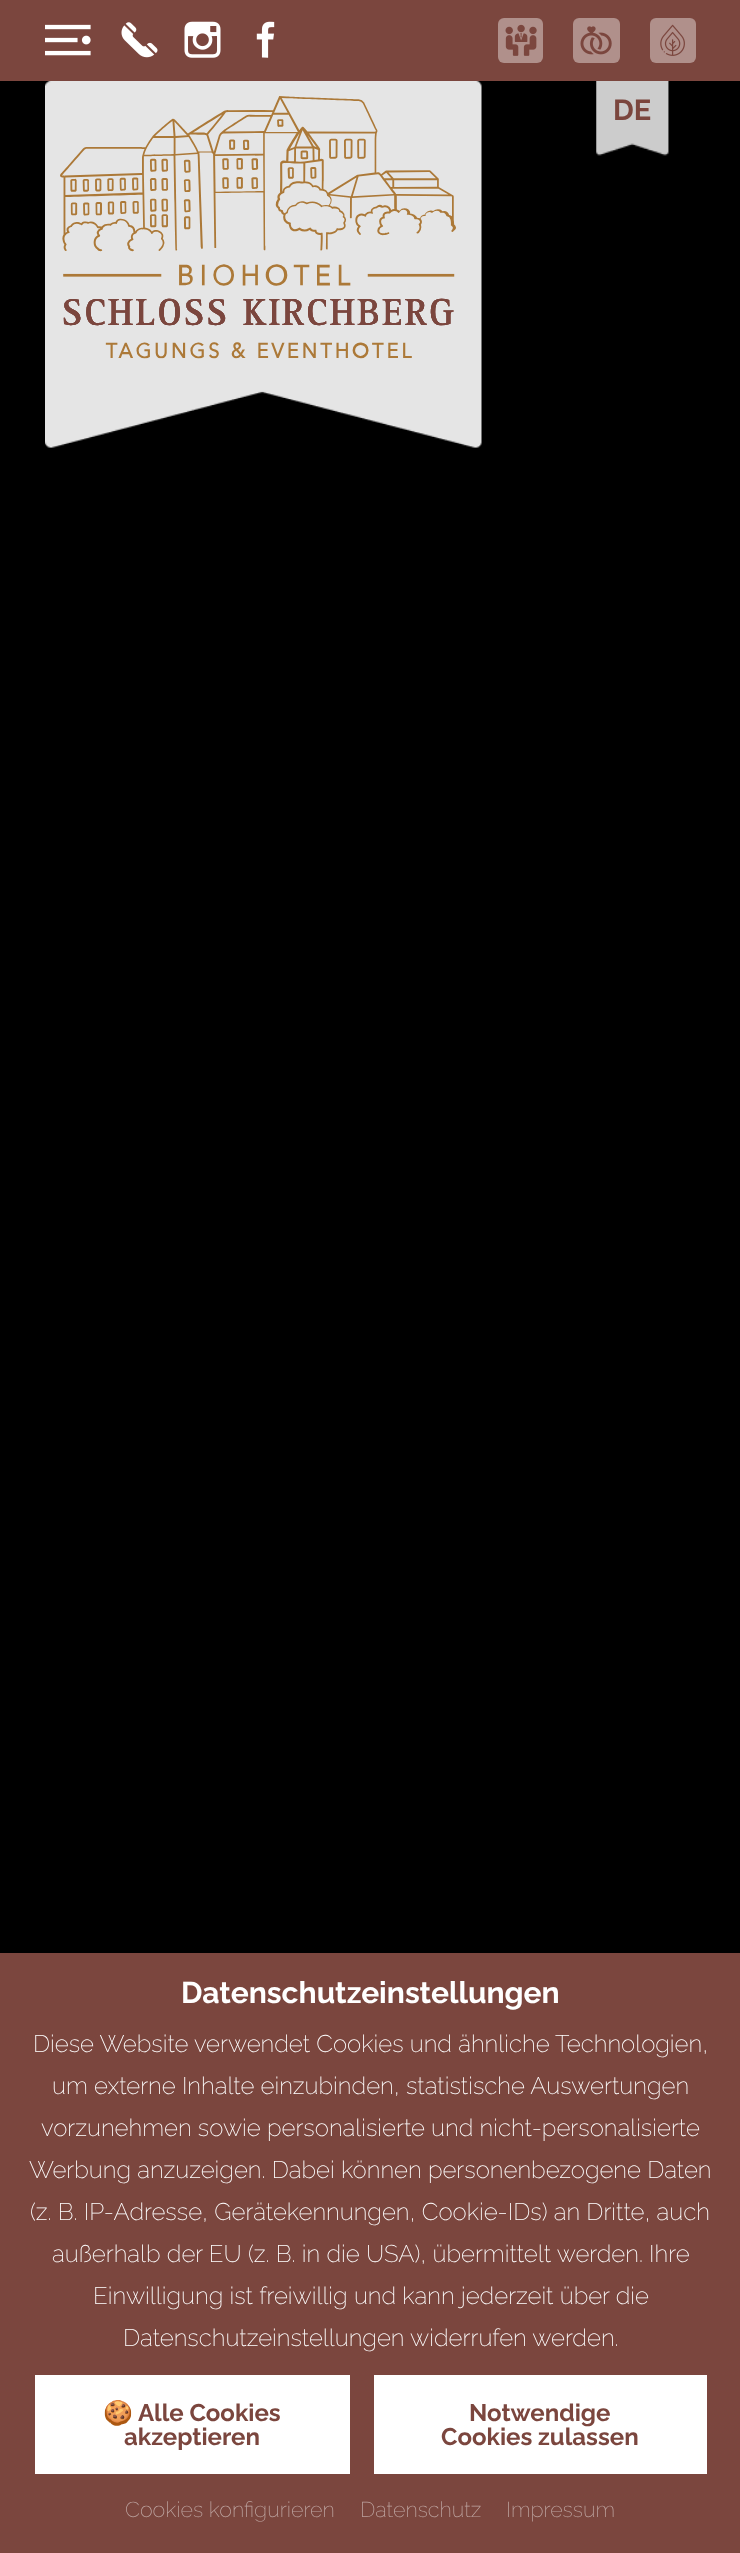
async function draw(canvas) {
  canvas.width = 740
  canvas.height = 2553
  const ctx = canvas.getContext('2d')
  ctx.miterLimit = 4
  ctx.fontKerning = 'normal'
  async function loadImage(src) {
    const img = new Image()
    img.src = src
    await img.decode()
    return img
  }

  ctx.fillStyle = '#000'
  ctx.fillRect(0, 0, 740, 2553)
  ctx.fillStyle = '#7b463e'
  ctx.fillRect(0, 0, 740, 81)
  ctx.drawImage(await loadImage('image0.png'), 45, 24, 46, 32)
  ctx.drawImage(await loadImage('image1.png'), 121, 22, 37, 36)
  ctx.drawImage(await loadImage('image2.png'), 184, 21, 37, 37)
  ctx.drawImage(await loadImage('image3.png'), 256, 21, 19, 37)
  ctx.fillStyle = '#b0908b'
  ctx.beginPath()
  ctx.roundRect(498, 18, 45, 45, 6)
  ctx.fill()
  ctx.drawImage(await loadImage('image4.png'), 505, 24, 32, 32)
  ctx.beginPath()
  ctx.roundRect(573, 18, 47, 45, 6)
  ctx.fill()
  ctx.drawImage(await loadImage('image5.png'), 580, 26, 32, 29)
  ctx.beginPath()
  ctx.roundRect(650, 18, 46, 45, 6)
  ctx.fill()
  ctx.drawImage(await loadImage('image6.png'), 660, 24, 25, 32)
  ctx.drawImage(await loadImage('image7.png'), 45, 81, 437, 367)
  ctx.drawImage(await loadImage('image8.png'), 60, 96, 396, 263)
  ctx.drawImage(await loadImage('image9.png'), 592, 81, 80, 75)
  ctx.font = 'bold 29px Raleway'
  ctx.fillStyle = '#7b463e'
  ctx.fillText('DE', 613, 120)
  ctx.fillRect(0, 1953, 740, 600)
  ctx.font = 'bold 30px Raleway'
  ctx.fillStyle = '#fff'
  ctx.fillText('Datenschutzeinstellungen', 181, 2003)
  ctx.font = '200 24px Raleway'
  ctx.fillText('Diese Website verwendet Cookies und ähnliche Technologien,', 33, 2052)
  ctx.fillText('um externe Inhalte einzubinden, statistische Auswertungen', 52, 2094)
  ctx.fillText('vorzunehmen sowie personalisierte und nicht-personalisierte', 41, 2136)
  ctx.fillText('Werbung anzuzeigen. Dabei können personenbezogene Daten', 29, 2178)
  ctx.fillText('(z. B. IP-Adresse, Gerätekennungen, Cookie-IDs) an Dritte, auch', 30, 2220)
  ctx.fillText('außerhalb der EU (z. B. in die USA), übermittelt werden. Ihre', 52, 2262)
  ctx.fillText('Einwilligung ist freiwillig und kann jederzeit über die', 93, 2304)
  ctx.fillText('Datenschutzeinstellungen widerrufen werden.', 123, 2346)
  ctx.fillRect(35, 2375, 315, 99)
  ctx.font = 'bold 24px Noto Color Emoji'
  ctx.fillStyle = '#7b463e'
  ctx.fillText('🍪', 103, 2421)
  ctx.font = 'bold 24px Raleway'
  ctx.fillText('Alle Cookies', 138, 2421)
  ctx.fillText('akzeptieren', 124, 2445)
  ctx.fillStyle = '#fff'
  ctx.fillRect(374, 2375, 333, 99)
  ctx.fillStyle = '#7b463e'
  ctx.fillText('Notwendige', 469, 2421)
  ctx.fillText('Cookies zulassen', 441, 2445)
  ctx.font = '200 21.5px Raleway'
  ctx.fillStyle = '#bda39f'
  ctx.fillText('Cookies konfigurieren', 125, 2517)
  ctx.fillText('Datenschutz', 360, 2517)
  ctx.fillText('Impressum', 506, 2517)
}

draw(document.querySelector('canvas'))
